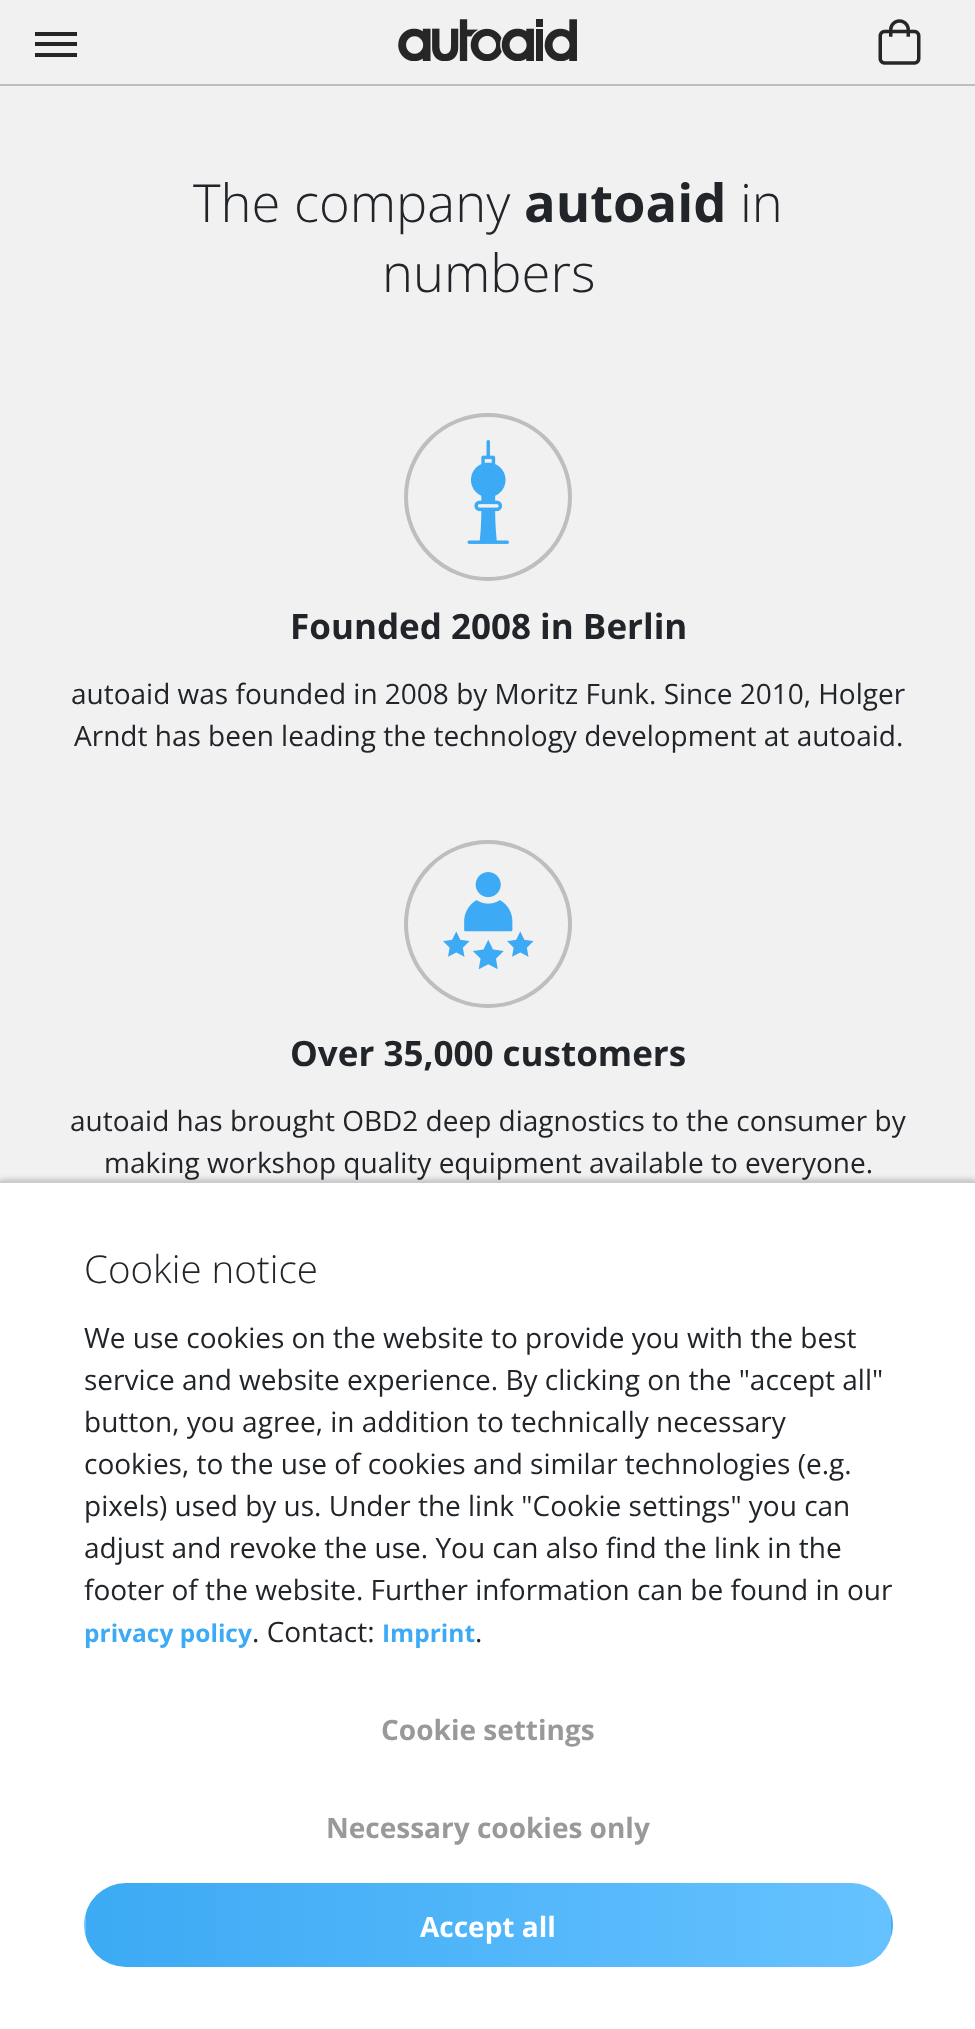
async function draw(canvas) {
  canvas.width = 975
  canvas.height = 2029
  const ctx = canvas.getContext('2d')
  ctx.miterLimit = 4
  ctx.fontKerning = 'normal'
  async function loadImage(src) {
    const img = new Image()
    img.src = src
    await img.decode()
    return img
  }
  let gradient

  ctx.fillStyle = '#f1f1f1'
  ctx.fillRect(0, 0, 975, 2029)
  ctx.fillStyle = '#bebebe'
  ctx.fillRect(0, 84, 975, 2)
  ctx.fillStyle = '#262626'
  ctx.fillRect(35, 32, 42, 4)
  ctx.fillRect(35, 42, 42, 4)
  ctx.fillRect(35, 53, 42, 4)
  ctx.drawImage(await loadImage('image0.png'), 398, 19, 179, 42)
  ctx.drawImage(await loadImage('image1.png'), 878, 19, 43, 46)
  ctx.font = '300 52.5px Open Sans'
  ctx.fillStyle = '#212529'
  ctx.fillText('The company', 193, 222)
  ctx.font = 'bold 52.5px Open Sans'
  ctx.fillText('autoaid', 524, 222)
  ctx.font = '300 52.5px Open Sans'
  ctx.fillText('in', 740, 222)
  ctx.fillText('numbers', 382, 292)
  ctx.beginPath()
  ctx.arc(488, 497, 82, 0, 2 * Math.PI)
  ctx.strokeStyle = '#bebebe'
  ctx.lineWidth = 4
  ctx.stroke()
  ctx.drawImage(await loadImage('image2.png'), 467, 440, 42, 104)
  ctx.font = 'bold 35px Open Sans'
  ctx.fillText('Founded 2008 in Berlin', 290, 639)
  ctx.font = '28px Open Sans'
  ctx.fillText('autoaid was founded in 2008 by Moritz Funk. Since 2010, Holger', 71, 704)
  ctx.fillText('Arndt has been leading the technology development at autoaid.', 74, 746)
  ctx.beginPath()
  ctx.arc(488, 924, 82, 0, 2 * Math.PI)
  ctx.stroke()
  ctx.drawImage(await loadImage('image3.png'), 443, 872, 91, 98)
  ctx.font = 'bold 35px Open Sans'
  ctx.fillText('Over 35,000 customers', 290, 1066)
  ctx.font = '28px Open Sans'
  ctx.fillText('autoaid has brought OBD2 deep diagnostics to the consumer by', 70, 1131)
  ctx.fillText('making workshop quality equipment available to everyone.', 104, 1173)
  ctx.fillStyle = '#0000004d'
  ctx.filter = 'blur(3.5px)'
  ctx.beginPath()
  ctx.rect(0, 1181, 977, 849)
  ctx.fill()
  ctx.filter = 'none'
  ctx.fillStyle = '#fff'
  ctx.fillRect(0, 1183, 975, 846)
  ctx.fillStyle = '#ccc'
  ctx.fillRect(0, 1181, 975, 2)
  ctx.font = '300 38.5px Open Sans'
  ctx.fillStyle = '#212529'
  ctx.fillText('Cookie notice', 84, 1283)
  ctx.font = '28px Open Sans'
  ctx.fillText('We use cookies on the website to provide you with the best', 84, 1348)
  ctx.fillText('service and website experience. By clicking on the "accept all"', 84, 1390)
  ctx.fillText('button, you agree, in addition to technically necessary', 84, 1432)
  ctx.fillText('cookies, to the use of cookies and similar technologies (e.g.', 84, 1474)
  ctx.fillText('pixels) used by us. Under the link "Cookie settings" you can', 84, 1516)
  ctx.fillText('adjust and revoke the use. You can also find the link in the', 84, 1558)
  ctx.fillText('footer of the website. Further information can be found in our', 84, 1600)
  ctx.font = 'bold 24.5px Open Sans'
  ctx.fillStyle = '#3caaf4'
  ctx.fillText('privacy policy', 84, 1642)
  ctx.font = '28px Open Sans'
  ctx.fillStyle = '#212529'
  ctx.fillText('. Contact:', 252, 1642)
  ctx.font = 'bold 24.5px Open Sans'
  ctx.fillStyle = '#3caaf4'
  ctx.fillText('Imprint', 382, 1642)
  ctx.font = '28px Open Sans'
  ctx.fillStyle = '#212529'
  ctx.fillText('.', 475, 1642)
  ctx.font = 'bold 28px Open Sans'
  ctx.fillStyle = '#999'
  ctx.fillText('Cookie settings', 381, 1740)
  ctx.fillText('Necessary cookies only', 326, 1838)
  ctx.save()
  ctx.beginPath()
  ctx.roundRect(84, 1883, 809, 84, 42)
  ctx.clip()
  gradient = ctx.createLinearGradient(-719, 1925, 86, 1925)
  gradient.addColorStop(0, '#3caaf4')
  gradient.addColorStop(1, '#66c2ff')
  ctx.fillStyle = gradient
  ctx.fillRect(84, 1912, 2, 26)
  gradient = ctx.createLinearGradient(86, 1925, 891, 1925)
  gradient.addColorStop(0, '#3caaf4')
  gradient.addColorStop(1, '#66c2ff')
  ctx.fillStyle = gradient
  ctx.fillRect(86, 1883, 805, 84)
  gradient = ctx.createLinearGradient(891, 1925, 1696, 1925)
  gradient.addColorStop(0, '#3caaf4')
  gradient.addColorStop(1, '#66c2ff')
  ctx.fillStyle = gradient
  ctx.fillRect(891, 1912, 2, 26)
  ctx.restore()
  ctx.fillStyle = '#fff'
  ctx.fillText('Accept all', 420, 1937)
}

draw(document.querySelector('canvas'))
